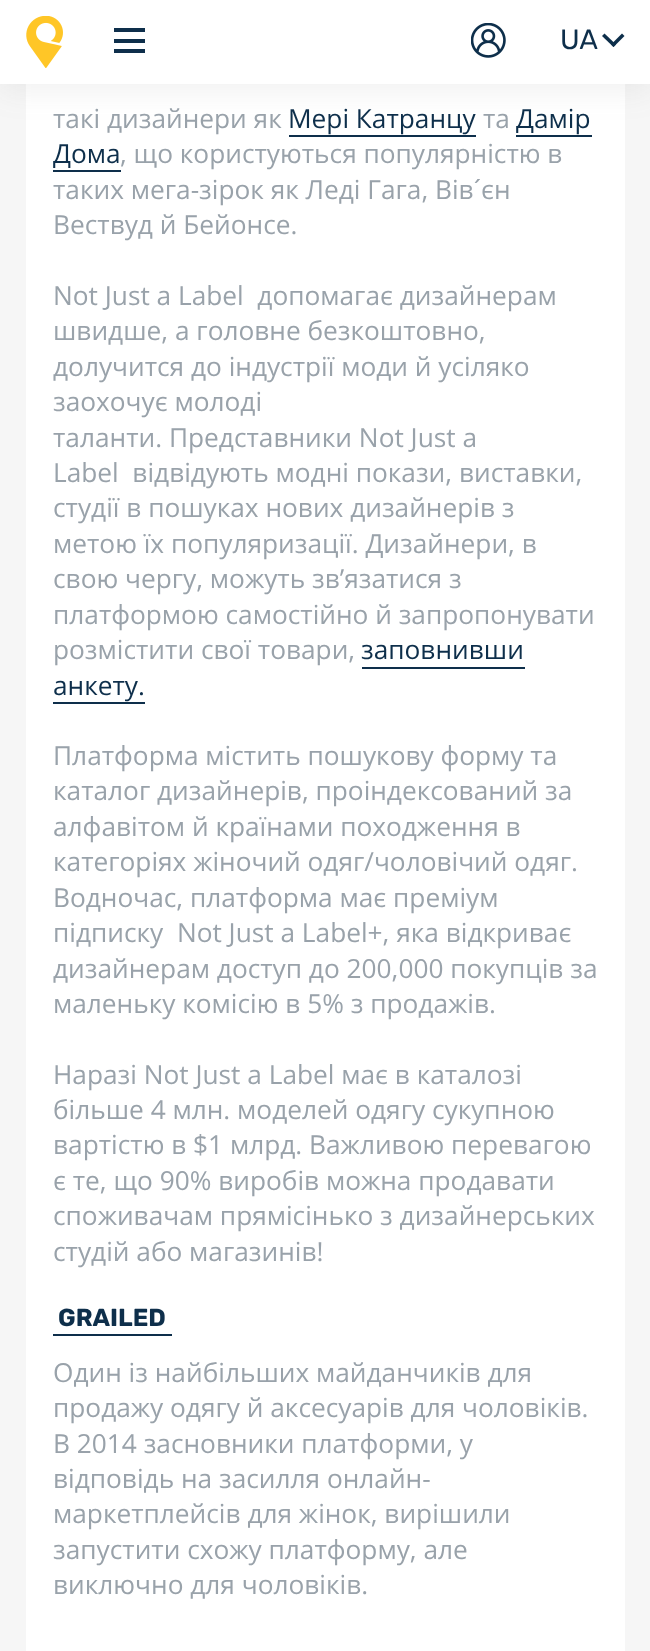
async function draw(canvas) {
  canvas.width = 650
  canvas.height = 1651
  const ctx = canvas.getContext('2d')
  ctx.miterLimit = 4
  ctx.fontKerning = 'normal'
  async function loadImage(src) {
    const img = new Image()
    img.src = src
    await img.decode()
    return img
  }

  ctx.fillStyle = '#f6f6f6'
  ctx.fillRect(0, 0, 650, 1651)
  ctx.fillStyle = '#fff'
  ctx.fillRect(26, 84, 599, 1567)
  ctx.fillStyle = '#0e2f4b'
  ctx.fillRect(289, 135, 187, 2)
  ctx.fillRect(516, 135, 76, 2)
  ctx.fillStyle = '#5f62661a'
  ctx.filter = 'blur(16px)'
  ctx.beginPath()
  ctx.rect(0, 5, 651, 84)
  ctx.fill()
  ctx.filter = 'none'
  ctx.fillStyle = '#fff'
  ctx.fillRect(0, 0, 650, 84)
  ctx.drawImage(await loadImage('image0.png'), 26, 16, 37, 52)
  ctx.fillStyle = '#0e2f4b'
  ctx.fillRect(114, 39, 31, 4)
  ctx.fillRect(114, 28, 31, 4)
  ctx.fillRect(114, 49, 31, 4)
  ctx.drawImage(await loadImage('image1.png'), 471, 23, 35, 35)
  ctx.font = '28px Rubik'
  ctx.fillText('UA', 560, 49)
  ctx.beginPath()
  ctx.moveTo(622, 33.5)
  ctx.lineTo(624.5, 36)
  ctx.lineTo(613.5, 47)
  ctx.lineTo(611, 44.5)
  ctx.closePath()
  ctx.fill()
  ctx.beginPath()
  ctx.moveTo(604.5, 33.5)
  ctx.lineTo(616, 44.5)
  ctx.lineTo(613.5, 47)
  ctx.lineTo(602, 36)
  ctx.closePath()
  ctx.fill()
  ctx.font = '26.25px Open Sans'
  ctx.fillStyle = '#99a2aa'
  ctx.fillText('такі дизайнери як', 53, 128)
  ctx.fillStyle = '#0e2f4b'
  ctx.fillText('Мері Катранцу', 288, 128)
  ctx.fillStyle = '#99a2aa'
  ctx.fillText('та', 483, 128)
  ctx.fillStyle = '#0e2f4b'
  ctx.fillText('Дамір', 516, 128)
  ctx.fillText('Дома', 53, 163)
  ctx.fillRect(53, 170, 68, 2)
  ctx.fillStyle = '#99a2aa'
  ctx.fillText(', що користуються популярністю в', 120, 163)
  ctx.fillText('таких мега-зірок як Леді Гага, Вів´єн', 53, 199)
  ctx.fillText('Вествуд й Бейонсе.', 53, 234)
  ctx.fillText('Not Just a Label  допомагає дизайнерам', 53, 305)
  ctx.fillText('швидше, а головне безкоштовно,', 53, 340)
  ctx.fillText('долучится до індустрії моди й усіляко', 53, 376)
  ctx.fillText('заохочує молоді', 53, 411)
  ctx.fillText('таланти. Представники Not Just a', 53, 447)
  ctx.fillText('Label  відвідують модні покази, виставки,', 53, 482)
  ctx.fillText('студії в пошуках нових дизайнерів з', 53, 517)
  ctx.fillText('метою їх популяризації. Дизайнери, в', 53, 553)
  ctx.fillText('свою чергу, можуть зв’язатися з', 53, 588)
  ctx.fillText('платформою самостійно й запропонувати', 53, 624)
  ctx.fillText('розмістити свої товари,', 53, 659)
  ctx.fillStyle = '#0e2f4b'
  ctx.fillText('заповнивши', 361, 659)
  ctx.fillRect(362, 667, 163, 2)
  ctx.fillText('анкету.', 53, 695)
  ctx.fillRect(53, 702, 92, 2)
  ctx.fillStyle = '#99a2aa'
  ctx.fillText('Платформа містить пошукову форму та', 53, 765)
  ctx.fillText('каталог дизайнерів, проіндексований за', 53, 800)
  ctx.fillText('алфавітом й країнами походження в', 53, 836)
  ctx.fillText('категоріях жіночий одяг/чоловічий одяг.', 53, 871)
  ctx.fillText('Водночас, платформа має преміум', 53, 907)
  ctx.fillText('підписку  Not Just a Label+, яка відкриває', 53, 942)
  ctx.fillText('дизайнерам доступ до 200,000 покупців за', 53, 978)
  ctx.fillText('маленьку комісію в 5% з продажів.', 53, 1013)
  ctx.fillText('Наразі Not Just a Label має в каталозі', 53, 1084)
  ctx.fillText('більше 4 млн. моделей одягу сукупною', 53, 1119)
  ctx.fillText('вартістю в $1 млрд. Важливою перевагою', 53, 1154)
  ctx.fillText('є те, що 90% виробів можна продавати', 53, 1190)
  ctx.fillText('споживачам прямісінько з дизайнерських', 53, 1225)
  ctx.fillText('студій або магазинів!', 53, 1261)
  ctx.font = 'bold 24.5px Rubik'
  ctx.fillStyle = '#0e2f4b'
  ctx.fillText('GRAILED', 58, 1326)
  ctx.fillRect(53, 1334, 119, 2)
  ctx.font = '26.25px Open Sans'
  ctx.fillStyle = '#99a2aa'
  ctx.fillText('Один із найбільших майданчиків для', 53, 1382)
  ctx.fillText('продажу одягу й аксесуарів для чоловіків.', 53, 1417)
  ctx.fillText('В 2014 засновники платформи, у', 53, 1453)
  ctx.fillText('відповідь на засилля онлайн-', 53, 1488)
  ctx.fillText('маркетплейсів для жінок, вирішили', 53, 1523)
  ctx.fillText('запустити схожу платформу, але', 53, 1559)
  ctx.fillText('виключно для чоловіків.', 53, 1594)
}

draw(document.querySelector('canvas'))
